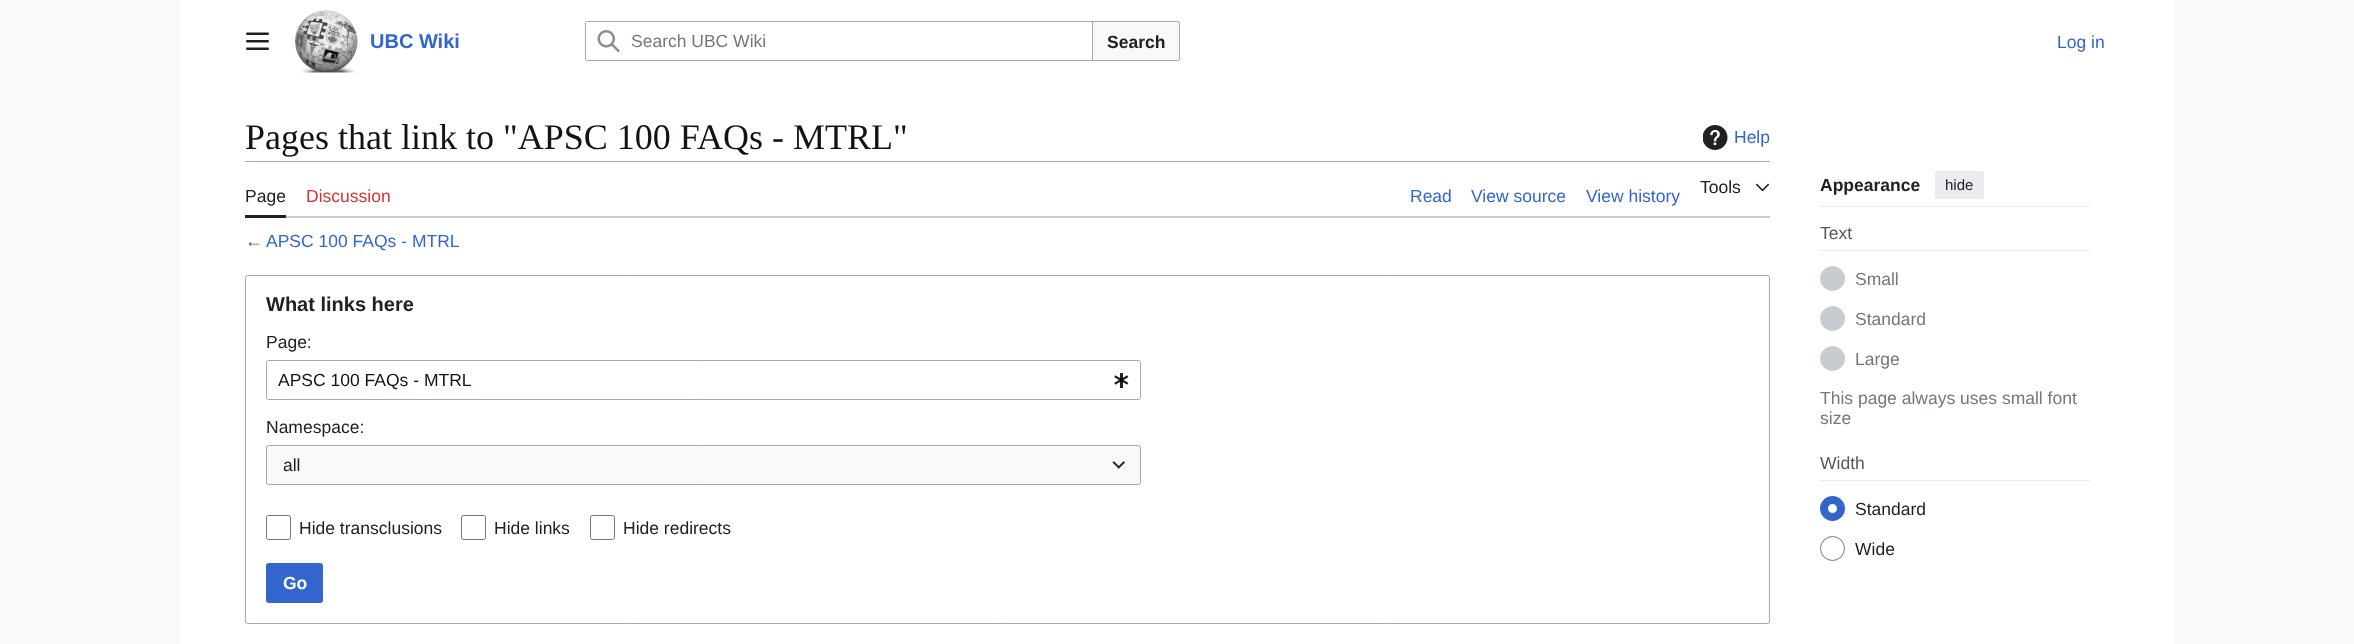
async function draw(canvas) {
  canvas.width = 2354
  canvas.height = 644
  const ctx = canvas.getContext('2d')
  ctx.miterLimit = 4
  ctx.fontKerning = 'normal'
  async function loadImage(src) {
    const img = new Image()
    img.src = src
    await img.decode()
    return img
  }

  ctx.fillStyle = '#f8f9fa'
  ctx.fillRect(0, 0, 2354, 644)
  ctx.fillStyle = '#fff'
  ctx.fillRect(180, 0, 1995, 644)
  ctx.drawImage(await loadImage('image0.png'), 246, 32, 23, 18)
  ctx.drawImage(await loadImage('image1.png'), 295, 10, 63, 63)
  ctx.font = 'bold 20px Liberation Sans'
  ctx.fillStyle = '#36c'
  ctx.fillText('UBC Wiki', 370, 48)
  ctx.beginPath()
  ctx.roundRect(585.5, 21.5, 594, 39, 2)
  ctx.strokeStyle = '#a2a9b1'
  ctx.stroke()
  ctx.fillStyle = '#f8f9fa'
  ctx.beginPath()
  ctx.roundRect(1091.5, 21.5, 88, 39, [0, 2, 2, 0])
  ctx.fill()
  ctx.stroke()
  ctx.fillStyle = '#fff'
  ctx.beginPath()
  ctx.roundRect(585, 21, 508, 40, [2.5, 0, 0, 2.5])
  ctx.fill()
  ctx.fillStyle = '#a2a9b1'
  ctx.beginPath()
  ctx.moveTo(588, 21)
  ctx.bezierCurveTo(586, 21, 585, 22, 585, 24)
  ctx.lineTo(585, 58)
  ctx.bezierCurveTo(585, 60, 586, 61, 588, 61)
  ctx.lineTo(1093, 61)
  ctx.lineTo(1093, 21)
  ctx.closePath()
  ctx.moveTo(586, 22)
  ctx.lineTo(586, 60)
  ctx.lineTo(1092, 60)
  ctx.lineTo(1092, 22)
  ctx.closePath()
  ctx.fill('evenodd')
  ctx.drawImage(await loadImage('image2.png'), 597, 30, 23, 23)
  ctx.font = '17.5px Liberation Sans'
  ctx.fillStyle = '#72777d'
  ctx.fillText('Search UBC Wiki', 631, 47)
  ctx.font = 'bold 17.5px Liberation Sans'
  ctx.fillStyle = '#202122'
  ctx.fillText('Search', 1107, 48)
  ctx.font = '17.5px Liberation Sans'
  ctx.fillStyle = '#36c'
  ctx.fillText('Log in', 2057, 48)
  ctx.font = '36px Liberation Serif'
  ctx.fillStyle = '#101418'
  ctx.fillText('Pages that link to "APSC 100 FAQs - MTRL"', 245, 149)
  ctx.drawImage(await loadImage('image3.png'), 1703, 125, 25, 25)
  ctx.font = '17.5px Liberation Sans'
  ctx.fillStyle = '#36c'
  ctx.fillText('Help', 1734, 143)
  ctx.fillStyle = '#a2a9b1'
  ctx.fillRect(245, 161, 1525, 1)
  ctx.fillStyle = '#c8ccd1'
  ctx.fillRect(286, 216, 1484, 2)
  ctx.fillStyle = '#202122'
  ctx.fillRect(245, 215, 41, 3)
  ctx.fillText('Page', 245, 202)
  ctx.fillStyle = '#d73333'
  ctx.fillText('Discussion', 306, 202)
  ctx.fillStyle = '#202122'
  ctx.fillText('Tools', 1700, 193)
  ctx.drawImage(await loadImage('image4.png'), 1755, 183, 15, 9)
  ctx.fillStyle = '#36c'
  ctx.fillText('Read', 1410, 202)
  ctx.fillText('View source', 1471, 202)
  ctx.fillText('View history', 1586, 202)
  ctx.fillStyle = '#eaecf0'
  ctx.fillRect(1820, 206, 270, 1)
  ctx.font = 'bold 17.5px Liberation Sans'
  ctx.fillStyle = '#202122'
  ctx.fillText('Appearance', 1820, 191)
  ctx.fillStyle = '#eaecf0'
  ctx.beginPath()
  ctx.roundRect(1935, 171, 49, 28, 2.5)
  ctx.fill()
  ctx.font = '15px Liberation Sans'
  ctx.fillStyle = '#202122'
  ctx.fillText('hide', 1945, 190)
  ctx.fillStyle = '#eaecf0'
  ctx.fillRect(1820, 250, 270, 1)
  ctx.font = '17.5px Liberation Sans'
  ctx.fillStyle = '#54595d'
  ctx.fillText('Text', 1820, 239)
  ctx.fillStyle = '#c8ccd1'
  ctx.beginPath()
  ctx.arc(1832.5, 278.5, 12, 0, 2 * Math.PI)
  ctx.fill()
  ctx.strokeStyle = '#c8ccd1'
  ctx.stroke()
  ctx.fillStyle = '#72777d'
  ctx.fillText('Small', 1855, 285)
  ctx.fillStyle = '#c8ccd1'
  ctx.beginPath()
  ctx.arc(1832.5, 318.5, 12, 0, 2 * Math.PI)
  ctx.fill()
  ctx.stroke()
  ctx.fillStyle = '#72777d'
  ctx.fillText('Standard', 1855, 325)
  ctx.fillStyle = '#c8ccd1'
  ctx.beginPath()
  ctx.arc(1832.5, 358.5, 12, 0, 2 * Math.PI)
  ctx.fill()
  ctx.stroke()
  ctx.fillStyle = '#72777d'
  ctx.fillText('Large', 1855, 365)
  ctx.fillText('This page always uses small font', 1820, 404)
  ctx.fillText('size', 1820, 424)
  ctx.fillStyle = '#eaecf0'
  ctx.fillRect(1820, 480, 270, 1)
  ctx.fillStyle = '#54595d'
  ctx.fillText('Width', 1820, 469)
  ctx.beginPath()
  ctx.arc(1832.5, 508.5, 8.5, 0, 2 * Math.PI)
  ctx.strokeStyle = '#36c'
  ctx.lineWidth = 8
  ctx.stroke()
  ctx.fillStyle = '#202122'
  ctx.fillText('Standard', 1855, 515)
  ctx.beginPath()
  ctx.arc(1832.5, 548.5, 12, 0, 2 * Math.PI)
  ctx.strokeStyle = '#72777d'
  ctx.lineWidth = 1
  ctx.stroke()
  ctx.fillText('Wide', 1855, 555)
  ctx.fillStyle = '#54595d'
  ctx.fillText('←', 245, 247)
  ctx.fillStyle = '#36c'
  ctx.fillText('APSC 100 FAQs - MTRL', 266, 247)
  ctx.beginPath()
  ctx.roundRect(245.5, 275.5, 1524, 348, 2)
  ctx.strokeStyle = '#a2a9b1'
  ctx.stroke()
  ctx.font = 'bold 20px Liberation Sans'
  ctx.fillStyle = '#202122'
  ctx.fillText('What links here', 266, 311)
  ctx.font = '17.5px Liberation Sans'
  ctx.fillText('Page:', 266, 348)
  ctx.beginPath()
  ctx.roundRect(266.5, 360.5, 874, 39, 2)
  ctx.stroke()
  ctx.fillStyle = '#101418'
  ctx.fillText('APSC 100 FAQs - MTRL', 278, 386)
  ctx.drawImage(await loadImage('image5.png'), 1114, 373, 15, 15)
  ctx.fillStyle = '#202122'
  ctx.fillText('Namespace:', 266, 433)
  ctx.fillStyle = '#f8f9fa'
  ctx.fillRect(266, 445, 875, 40)
  ctx.beginPath()
  ctx.roundRect(266.5, 445.5, 874, 39, 2)
  ctx.stroke()
  ctx.fillStyle = '#202122'
  ctx.fillText('all', 283, 471)
  ctx.drawImage(await loadImage('image6.png'), 1112, 461, 13, 8)
  ctx.beginPath()
  ctx.roundRect(266.5, 515.5, 24, 24, 2)
  ctx.strokeStyle = '#72777d'
  ctx.stroke()
  ctx.fillText('Hide transclusions', 299, 534)
  ctx.beginPath()
  ctx.roundRect(461.5, 515.5, 24, 24, 2)
  ctx.stroke()
  ctx.fillText('Hide links', 494, 534)
  ctx.beginPath()
  ctx.roundRect(590.5, 515.5, 24, 24, 2)
  ctx.stroke()
  ctx.fillText('Hide redirects', 623, 534)
  ctx.fillStyle = '#36c'
  ctx.beginPath()
  ctx.roundRect(266.5, 563.5, 56, 39, 2)
  ctx.fill()
  ctx.strokeStyle = '#36c'
  ctx.stroke()
  ctx.font = 'bold 17.5px Liberation Sans'
  ctx.fillStyle = '#fff'
  ctx.fillText('Go', 283, 589)
}

draw(document.querySelector('canvas'))
